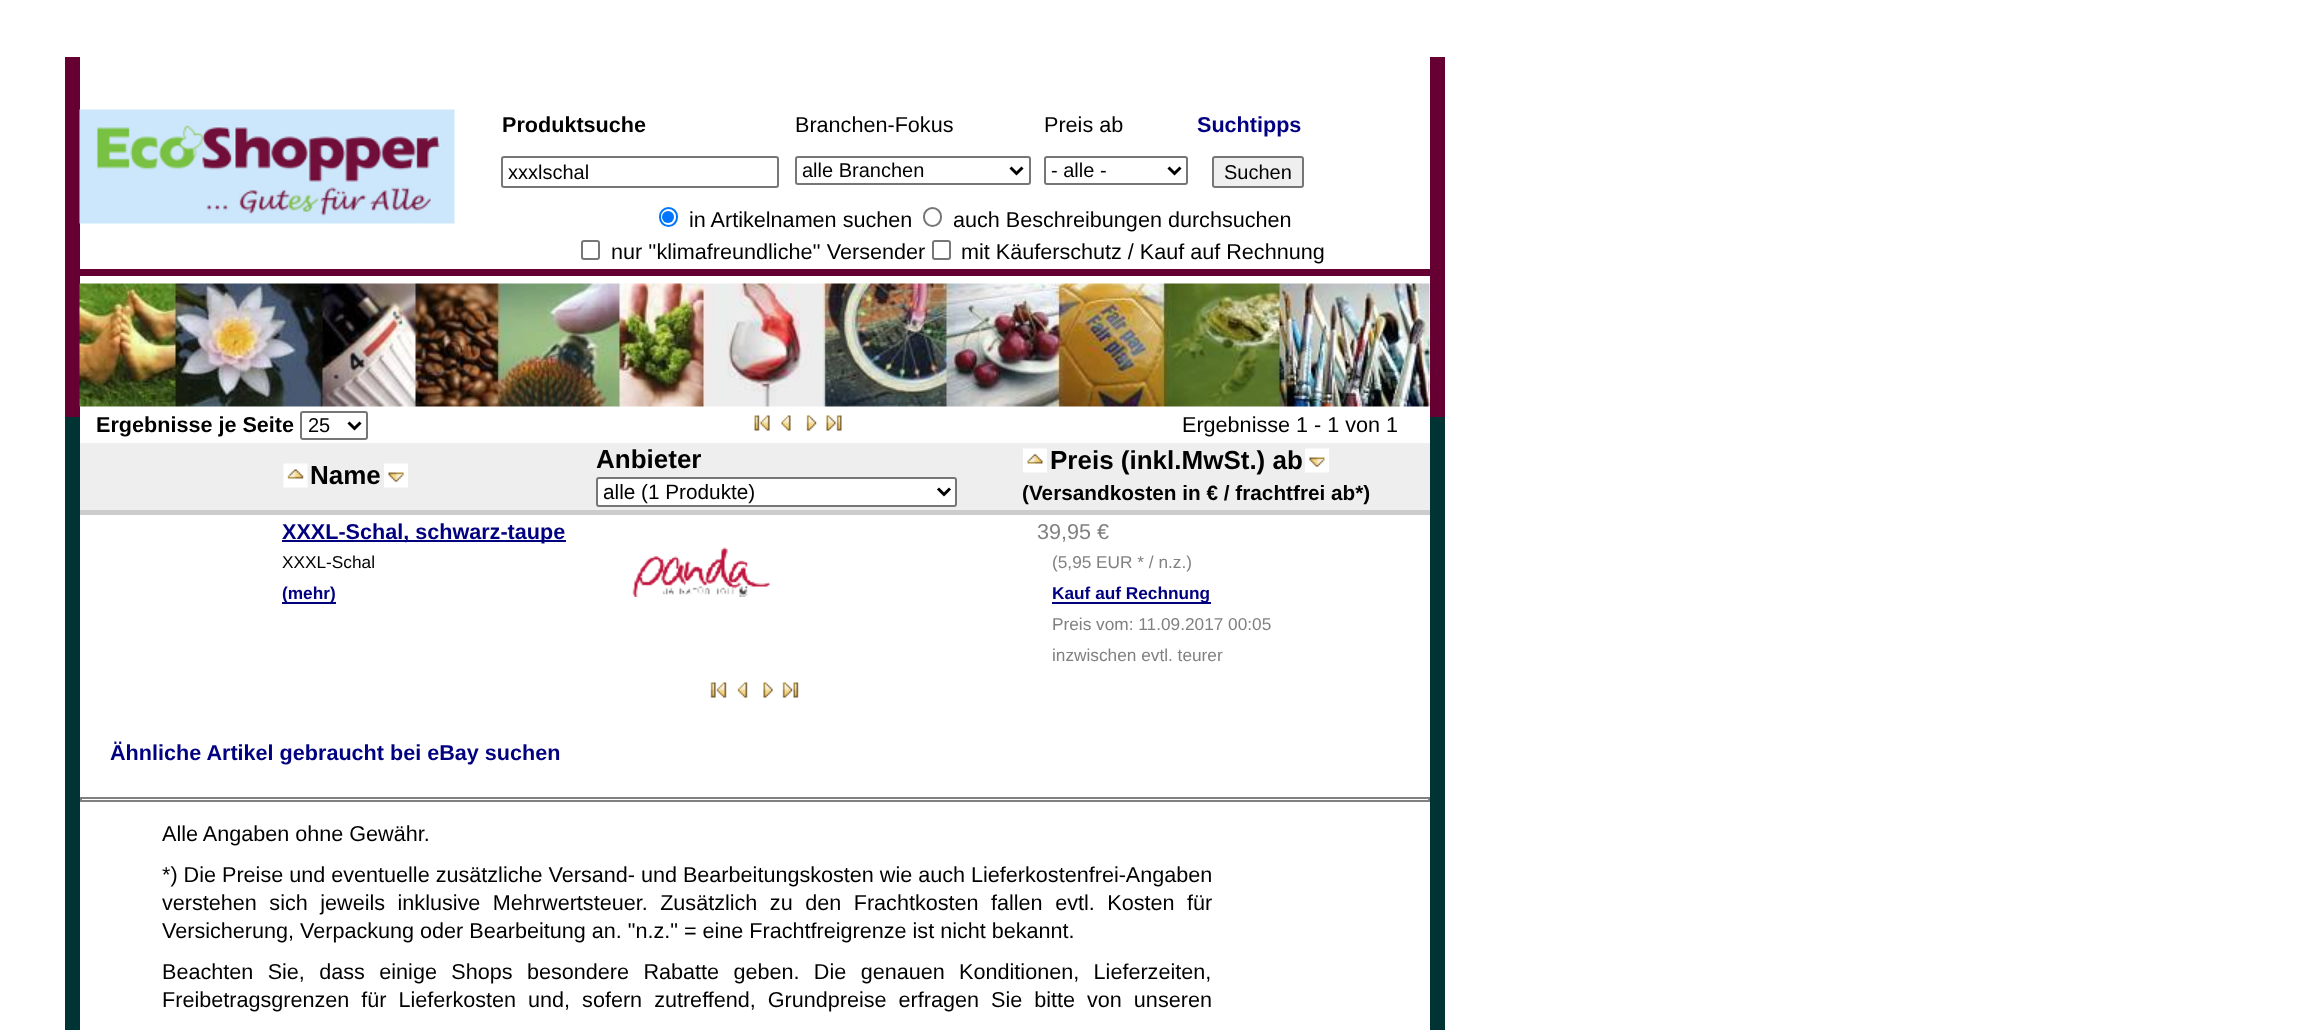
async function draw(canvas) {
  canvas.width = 2321
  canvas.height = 1030
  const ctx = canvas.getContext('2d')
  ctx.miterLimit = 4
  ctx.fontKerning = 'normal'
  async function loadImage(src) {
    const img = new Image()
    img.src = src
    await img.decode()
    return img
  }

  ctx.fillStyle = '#fff'
  ctx.fillRect(0, 0, 2321, 1030)
  ctx.fillStyle = '#603'
  ctx.fillRect(1430, 57, 15, 360)
  ctx.fillRect(65, 57, 15, 360)
  ctx.drawImage(await loadImage('image0.png'), 79, 109, 376, 115)
  ctx.font = 'bold 21.6px Liberation Sans'
  ctx.fillStyle = '#000'
  ctx.fillText('Produktsuche', 502, 132)
  ctx.font = '21.6px Liberation Sans'
  ctx.fillText('Branchen-Fokus', 795, 132)
  ctx.fillText('Preis ab', 1044, 132)
  ctx.font = 'bold 21.6px Liberation Sans'
  ctx.fillStyle = '#000080'
  ctx.fillText('Suchtipps', 1197, 132)
  ctx.beginPath()
  ctx.roundRect(502, 157, 276, 30, 2)
  ctx.strokeStyle = '#767676'
  ctx.lineWidth = 2
  ctx.stroke()
  ctx.font = '20px Liberation Sans'
  ctx.fillStyle = '#000'
  ctx.fillText('xxxlschal', 508, 179)
  ctx.beginPath()
  ctx.roundRect(796, 157, 234, 27, 2)
  ctx.stroke()
  ctx.beginPath()
  ctx.moveTo(1010.5, 167.5)
  ctx.lineTo(1016.5, 173.5)
  ctx.lineTo(1022.5, 167.5)
  ctx.strokeStyle = '#000'
  ctx.lineWidth = 3
  ctx.stroke()
  ctx.fillText('alle Branchen', 802, 177)
  ctx.beginPath()
  ctx.roundRect(1045, 157, 142, 27, 2)
  ctx.strokeStyle = '#767676'
  ctx.lineWidth = 2
  ctx.stroke()
  ctx.beginPath()
  ctx.moveTo(1168.5, 167.5)
  ctx.lineTo(1174.5, 173.5)
  ctx.lineTo(1180.5, 167.5)
  ctx.strokeStyle = '#000'
  ctx.lineWidth = 3
  ctx.stroke()
  ctx.fillText('- alle -', 1051, 177)
  ctx.fillStyle = '#efefef'
  ctx.beginPath()
  ctx.roundRect(1213, 157, 90, 30, 2)
  ctx.fill()
  ctx.strokeStyle = '#767676'
  ctx.lineWidth = 2
  ctx.stroke()
  ctx.fillStyle = '#000'
  ctx.fillText('Suchen', 1224, 179)
  ctx.beginPath()
  ctx.roundRect(660, 208, 17, 18, 8.5)
  ctx.strokeStyle = '#0075ff'
  ctx.stroke()
  ctx.fillStyle = '#0075ff'
  ctx.beginPath()
  ctx.arc(668, 217, 6, 0, 2 * Math.PI)
  ctx.fill()
  ctx.font = '21.6px Liberation Sans'
  ctx.fillStyle = '#000'
  ctx.fillText('in Artikelnamen suchen', 689, 227)
  ctx.beginPath()
  ctx.roundRect(924, 208, 17, 18, 8.5)
  ctx.strokeStyle = '#767676'
  ctx.stroke()
  ctx.fillText('auch Beschreibungen durchsuchen', 953, 227)
  ctx.beginPath()
  ctx.roundRect(582, 241, 17, 18, 2)
  ctx.stroke()
  ctx.fillText('nur \'\'klimafreundliche\'\' Versender', 611, 259)
  ctx.beginPath()
  ctx.roundRect(933, 241, 17, 18, 2)
  ctx.stroke()
  ctx.fillText('mit Käuferschutz / Kauf auf Rechnung', 961, 259)
  ctx.fillStyle = '#603'
  ctx.fillRect(80, 269, 1350, 7)
  ctx.drawImage(await loadImage('image1.png'), 79, 283, 1351, 124)
  ctx.fillStyle = '#ccc'
  ctx.fillRect(78, 510, 1355, 5)
  ctx.fillStyle = '#033'
  ctx.fillRect(1430, 417, 15, 613)
  ctx.fillRect(65, 417, 15, 613)
  ctx.font = 'bold 21.6px Liberation Sans'
  ctx.fillStyle = '#000'
  ctx.fillText('Ergebnisse je Seite', 96, 432)
  ctx.beginPath()
  ctx.roundRect(301, 412, 66, 27, 2)
  ctx.stroke()
  ctx.beginPath()
  ctx.moveTo(348.5, 422.5)
  ctx.lineTo(354.5, 428.5)
  ctx.lineTo(360.5, 422.5)
  ctx.strokeStyle = '#000'
  ctx.lineWidth = 3
  ctx.stroke()
  ctx.font = '20px Liberation Sans'
  ctx.fillText('25', 308, 432)
  ctx.drawImage(await loadImage('image2.png'), 754, 415, 16, 16)
  ctx.drawImage(await loadImage('image3.png'), 781, 415, 10, 16)
  ctx.drawImage(await loadImage('image4.png'), 806, 415, 11, 16)
  ctx.drawImage(await loadImage('image5.png'), 826, 415, 16, 16)
  ctx.font = '21.6px Liberation Sans'
  ctx.fillText('Ergebnisse 1 - 1 von 1', 1182, 432)
  ctx.fillStyle = '#eee'
  ctx.fillRect(80, 443, 1350, 67)
  ctx.drawImage(await loadImage('image6.png'), 283, 463, 25, 25)
  ctx.font = 'bold 26px Liberation Sans'
  ctx.fillStyle = '#000'
  ctx.fillText('Name', 310, 484)
  ctx.drawImage(await loadImage('image7.png'), 384, 463, 24, 25)
  ctx.fillText('Anbieter', 596, 468)
  ctx.fillStyle = '#fff'
  ctx.beginPath()
  ctx.roundRect(597, 478, 359, 28, 2)
  ctx.fill()
  ctx.strokeStyle = '#767676'
  ctx.lineWidth = 2
  ctx.stroke()
  ctx.beginPath()
  ctx.moveTo(938, 488.5)
  ctx.lineTo(944, 494.5)
  ctx.lineTo(950, 488.5)
  ctx.strokeStyle = '#000'
  ctx.lineWidth = 3
  ctx.stroke()
  ctx.font = '20.75px Liberation Sans'
  ctx.fillStyle = '#000'
  ctx.fillText('alle (1 Produkte)', 603, 499)
  ctx.drawImage(await loadImage('image8.png'), 1023, 448, 24, 25)
  ctx.font = 'bold 26px Liberation Sans'
  ctx.fillText('Preis (inkl.MwSt.) ab', 1050, 469)
  ctx.drawImage(await loadImage('image9.png'), 1305, 448, 24, 25)
  ctx.font = 'bold 20.75px Liberation Sans'
  ctx.fillText('(Versandkosten in € / frachtfrei ab*)', 1022, 500)
  ctx.fillStyle = '#000080'
  ctx.fillRect(282, 540, 284, 2)
  ctx.font = 'bold 21.6px Liberation Sans'
  ctx.fillText('XXXL-Schal, schwarz-taupe', 282, 539)
  ctx.font = '17.25px Liberation Sans'
  ctx.fillStyle = '#000'
  ctx.fillText('XXXL-Schal', 282, 568)
  ctx.fillStyle = '#000080'
  ctx.fillRect(282, 602, 54, 2)
  ctx.font = 'bold 17.25px Liberation Sans'
  ctx.fillText('(mehr)', 282, 599)
  ctx.drawImage(await loadImage('image10.png'), 632, 547, 138, 50)
  ctx.font = '21.6px Liberation Sans'
  ctx.fillStyle = '#808080'
  ctx.fillText('39,95 €', 1037, 539)
  ctx.font = '17.25px Liberation Sans'
  ctx.fillText('(5,95 EUR * / n.z.)', 1052, 568)
  ctx.fillStyle = '#000080'
  ctx.fillRect(1052, 602, 159, 2)
  ctx.font = 'bold 17.25px Liberation Sans'
  ctx.fillText('Kauf auf Rechnung', 1052, 599)
  ctx.font = '17.25px Liberation Sans'
  ctx.fillStyle = '#808080'
  ctx.fillText('Preis vom: 11.09.2017 00:05', 1052, 630)
  ctx.fillText('inzwischen evtl. teurer', 1052, 661)
  ctx.drawImage(await loadImage('image11.png'), 710, 682, 17, 16)
  ctx.drawImage(await loadImage('image12.png'), 737, 682, 11, 16)
  ctx.drawImage(await loadImage('image13.png'), 763, 682, 10, 16)
  ctx.drawImage(await loadImage('image14.png'), 782, 682, 17, 16)
  ctx.font = 'bold 21.6px Liberation Sans'
  ctx.fillStyle = '#000080'
  ctx.fillText('Ähnliche Artikel gebraucht bei eBay suchen', 110, 760)
  ctx.strokeStyle = '#808080'
  ctx.lineWidth = 2
  ctx.strokeRect(81, 798, 1348, 3)
  ctx.font = '21.6px Liberation Sans'
  ctx.fillStyle = '#000'
  ctx.fillText('Alle Angaben ohne Gewähr.', 162, 841)
  ctx.fillText('*) Die Preise und eventuelle zusätzliche Versand- und Bearbeitungskosten wie auch Lieferkostenfrei-Angaben', 162, 882)
  ctx.wordSpacing = '6.5px'
  ctx.fillText('verstehen sich jeweils inklusive Mehrwertsteuer. Zusätzlich zu den Frachtkosten fallen evtl. Kosten für', 162, 910)
  ctx.wordSpacing = '0px'
  ctx.fillText('Versicherung, Verpackung oder Bearbeitung an. "n.z." = eine Frachtfreigrenze ist nicht bekannt.', 162, 938)
  ctx.wordSpacing = '8.4px'
  ctx.fillText('Beachten Sie, dass einige Shops besondere Rabatte geben. Die genauen Konditionen, Lieferzeiten,', 162, 979)
  ctx.wordSpacing = '6px'
  ctx.fillText('Freibetragsgrenzen für Lieferkosten und, sofern zutreffend, Grundpreise erfragen Sie bitte von unseren', 162, 1007)
}

draw(document.querySelector('canvas'))
